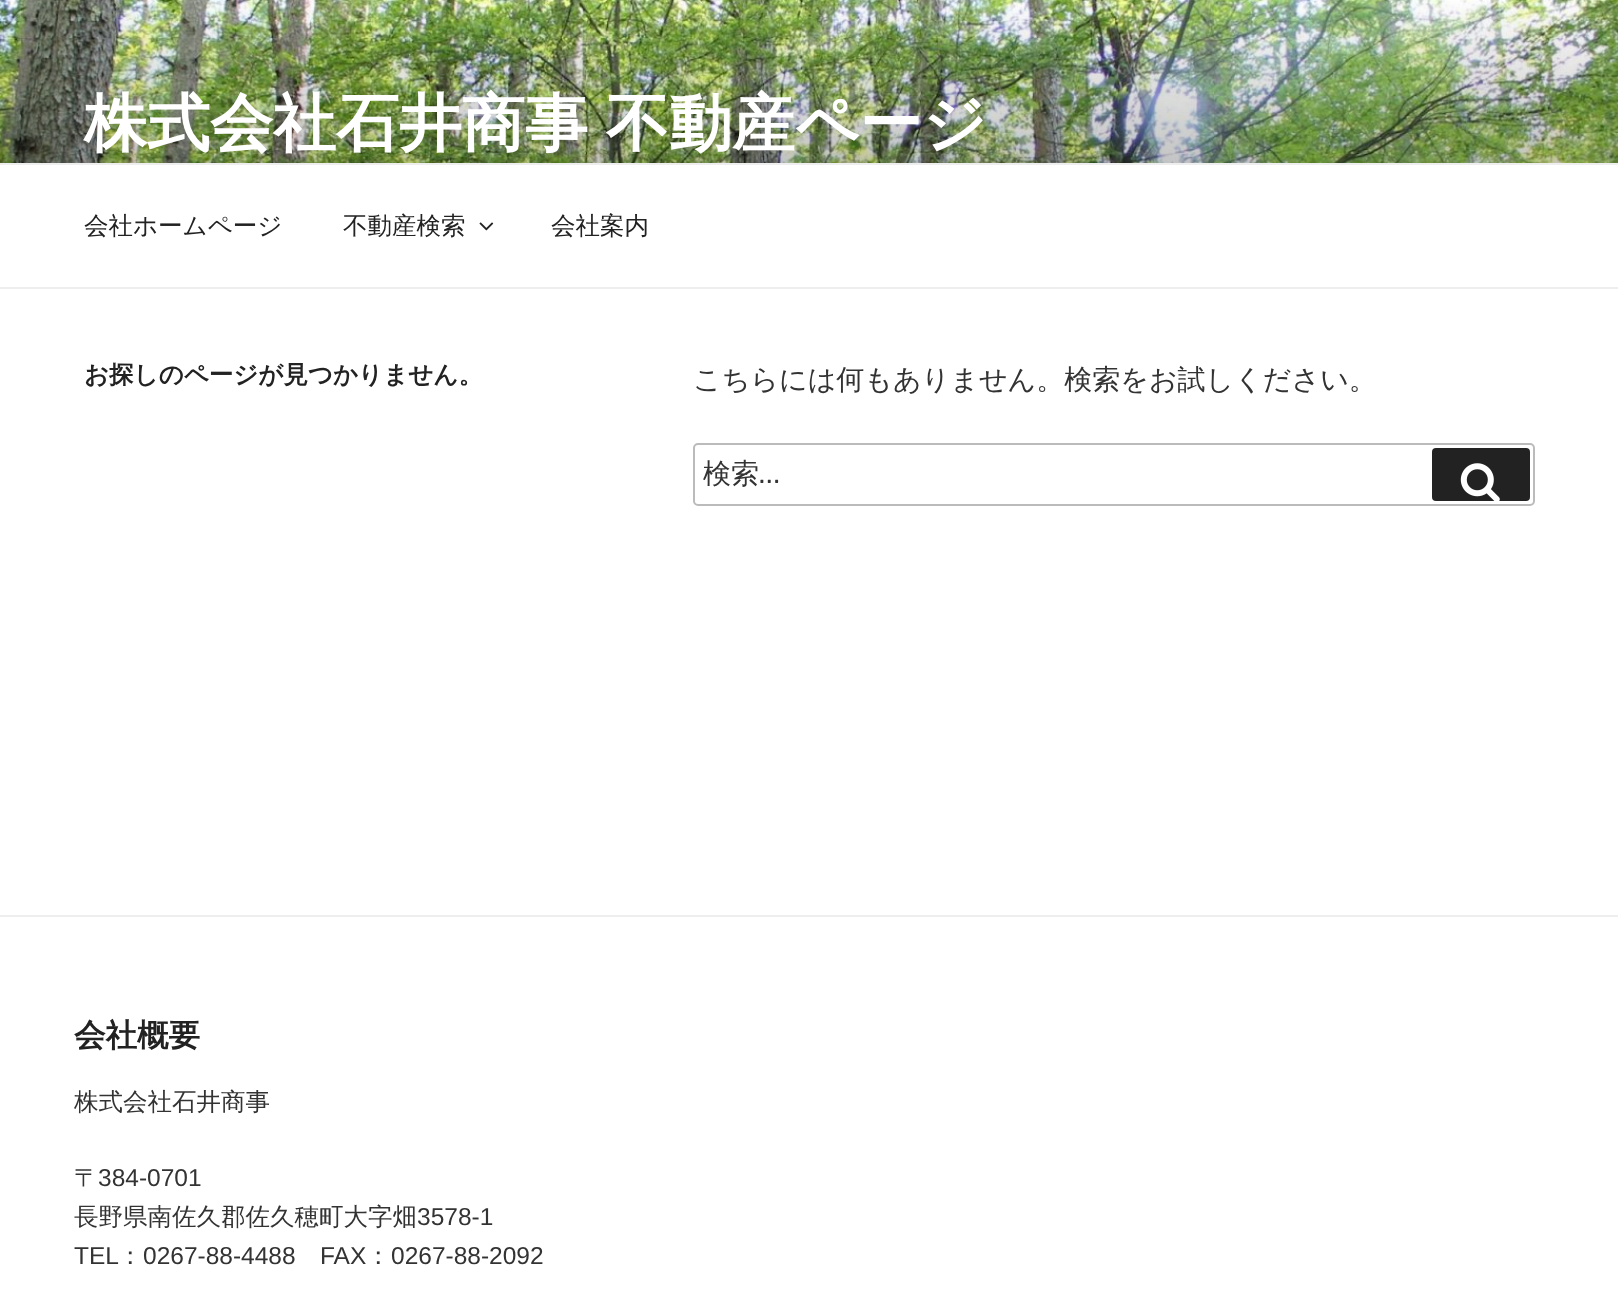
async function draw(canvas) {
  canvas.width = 1618
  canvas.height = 1315
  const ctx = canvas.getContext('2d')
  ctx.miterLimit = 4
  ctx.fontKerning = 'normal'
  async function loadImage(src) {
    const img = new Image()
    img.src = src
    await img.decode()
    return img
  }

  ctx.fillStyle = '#fff'
  ctx.fillRect(0, 0, 1618, 1315)
  ctx.drawImage(await loadImage('image0.png'), 0, 0, 1618, 163)
  ctx.wordSpacing = '-1px'
  ctx.font = 'bold 63px WenQuanYi Zen Hei'
  ctx.fillText('株式会社石井商事 不動産ページ', 84, 145)
  ctx.fillStyle = '#eee'
  ctx.fillRect(0, 163, 1618, 2)
  ctx.fillRect(0, 287, 1618, 2)
  ctx.wordSpacing = '0px'
  ctx.font = '500 24.5px WenQuanYi Zen Hei'
  ctx.fillStyle = '#222'
  ctx.fillText('会社ホームページ', 84, 234)
  ctx.fillText('不動産検索', 343, 234)
  ctx.drawImage(await loadImage('image1.png'), 479, 222, 15, 9)
  ctx.fillText('会社案内', 551, 234)
  ctx.font = 'bold 24.5px WenQuanYi Zen Hei'
  ctx.fillText('お探しのページが見つかりません。', 84, 383)
  ctx.font = '500 28px WenQuanYi Zen Hei'
  ctx.fillStyle = '#333'
  ctx.fillText('こちらには何もありません。検索をお試しください。', 693, 389)
  ctx.beginPath()
  ctx.roundRect(694, 444, 840, 61, 4)
  ctx.strokeStyle = '#bbb'
  ctx.lineWidth = 2
  ctx.stroke()
  ctx.fillText('検索', 703, 483)
  ctx.font = '28px Libre Franklin'
  ctx.fillText('…', 759, 483)
  ctx.fillStyle = '#222'
  ctx.beginPath()
  ctx.roundRect(1432, 448, 98, 53, 4)
  ctx.fill()
  ctx.drawImage(await loadImage('image2.png'), 1460, 463, 40, 38)
  ctx.fillStyle = '#eee'
  ctx.fillRect(0, 915, 1618, 2)
  ctx.font = 'bold 31.5px WenQuanYi Zen Hei'
  ctx.fillStyle = '#222'
  ctx.fillText('会社概要', 74, 1046)
  ctx.font = '500 24.5px WenQuanYi Zen Hei'
  ctx.fillStyle = '#333'
  ctx.fillText('株式会社石井商事', 74, 1110)
  ctx.fillText('〒', 74, 1186)
  ctx.font = '24.5px Liberation Sans'
  ctx.fillText('384-0701', 98, 1186)
  ctx.font = '500 24.5px WenQuanYi Zen Hei'
  ctx.fillText('長野県南佐久郡佐久穂町大字畑', 74, 1225)
  ctx.font = '24.5px Liberation Sans'
  ctx.fillText('3578-1', 417, 1225)
  ctx.fillText('TEL', 74, 1264)
  ctx.font = '500 24.5px WenQuanYi Zen Hei'
  ctx.fillText('：', 118, 1264)
  ctx.font = '24.5px Liberation Sans'
  ctx.fillText('0267-88-4488', 143, 1264)
  ctx.fillText('FAX', 320, 1264)
  ctx.font = '500 24.5px WenQuanYi Zen Hei'
  ctx.fillText('：', 366, 1264)
  ctx.font = '24.5px Liberation Sans'
  ctx.fillText('0267-88-2092', 391, 1264)
}

draw(document.querySelector('canvas'))
